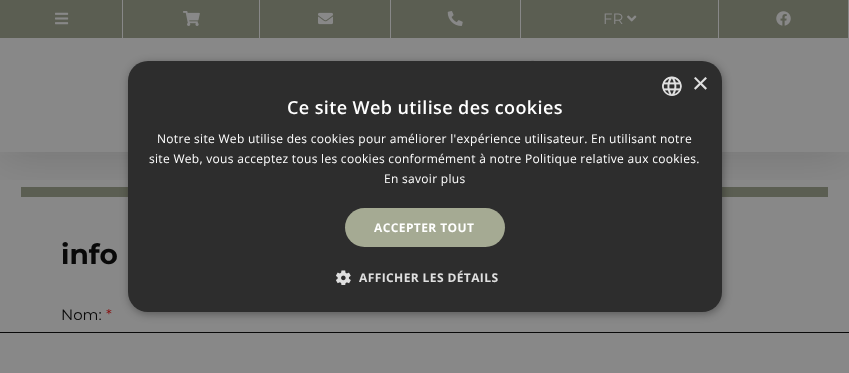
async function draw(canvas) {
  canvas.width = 849
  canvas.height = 373
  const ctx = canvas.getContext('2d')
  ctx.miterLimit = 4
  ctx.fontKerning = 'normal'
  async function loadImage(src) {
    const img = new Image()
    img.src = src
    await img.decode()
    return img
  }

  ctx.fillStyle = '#888'
  ctx.fillRect(0, 0, 849, 373)
  ctx.fillStyle = '#5b5e52'
  ctx.fillRect(21, 187, 807, 10)
  ctx.save()
  ctx.beginPath()
  ctx.rect(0, 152, 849, 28)
  ctx.clip()
  ctx.fillStyle = '#09090926'
  ctx.filter = 'blur(22.5px)'
  ctx.beginPath()
  ctx.rect(0, 3, 849, 152)
  ctx.fill()
  ctx.filter = 'none'
  ctx.restore()
  ctx.drawImage(await loadImage('image0.png'), 531, 60, 3, 1)
  ctx.fillRect(0, 0, 122, 38)
  ctx.drawImage(await loadImage('image1.png'), 55, 12, 14, 13)
  ctx.fillRect(123, 0, 136, 38)
  ctx.drawImage(await loadImage('image2.png'), 183, 11, 17, 15)
  ctx.fillRect(260, 0, 130, 38)
  ctx.drawImage(await loadImage('image3.png'), 318, 12, 15, 13)
  ctx.fillRect(391, 0, 129, 38)
  ctx.drawImage(await loadImage('image4.png'), 447, 11, 16, 15)
  ctx.fillRect(521, 0, 197, 38)
  ctx.font = '15px Montserrat'
  ctx.fillStyle = '#888'
  ctx.fillText('FR', 603, 24)
  ctx.drawImage(await loadImage('image5.png'), 627, 15, 10, 7)
  ctx.fillStyle = '#5b5e52'
  ctx.fillRect(719, 0, 129, 38)
  ctx.drawImage(await loadImage('image6.png'), 776, 11, 15, 15)
  ctx.font = 'bold 28px Montserrat'
  ctx.fillStyle = '#090909'
  ctx.fillText('info', 61, 264)
  ctx.font = '15px Montserrat'
  ctx.fillText('Nom:', 61, 320)
  ctx.fillStyle = '#880909'
  ctx.fillText('*', 106, 320)
  ctx.fillStyle = '#00000059'
  ctx.filter = 'blur(4px)'
  ctx.beginPath()
  ctx.roundRect(129, 63, 594, 251, 20)
  ctx.fill()
  ctx.filter = 'none'
  ctx.fillStyle = '#2d2d2d'
  ctx.beginPath()
  ctx.roundRect(128, 61, 594, 251, 20)
  ctx.fill()
  ctx.drawImage(await loadImage('image7.png'), 662, 76, 20, 20)
  ctx.font = '29px Liberation Sans'
  ctx.fillStyle = '#e0e0e0'
  ctx.fillText('×', 692, 93)
  ctx.letterSpacing = '0.4px'
  ctx.font = '600 18px Open Sans'
  ctx.fillStyle = '#fff'
  ctx.fillText('Ce site Web utilise des cookies', 287, 114)
  ctx.letterSpacing = '0.3px'
  ctx.font = '12px Open Sans'
  ctx.fillText('Notre site Web utilise des cookies pour améliorer l\'expérience utilisateur. En utilisant notre', 157, 143)
  ctx.fillText('site Web, vous acceptez tous les cookies conformément à notre Politique relative aux cookies.', 149, 163)
  ctx.fillText('En savoir plus', 384, 183)
  ctx.fillStyle = '#a5aa93'
  ctx.beginPath()
  ctx.roundRect(345, 208, 160, 39, 19.5)
  ctx.fill()
  ctx.letterSpacing = '0.4px'
  ctx.font = 'bold 12px Open Sans'
  ctx.fillStyle = '#fff'
  ctx.fillText('ACCEPTER TOUT', 374, 232)
  ctx.drawImage(await loadImage('image8.png'), 336, 270, 15, 15)
  ctx.fillStyle = '#e0e0e0'
  ctx.fillText('AFFICHER LES DÉTAILS', 359, 282)
  ctx.fillStyle = '#090909'
  ctx.fillRect(0, 332, 849, 1)
}

draw(document.querySelector('canvas'))
